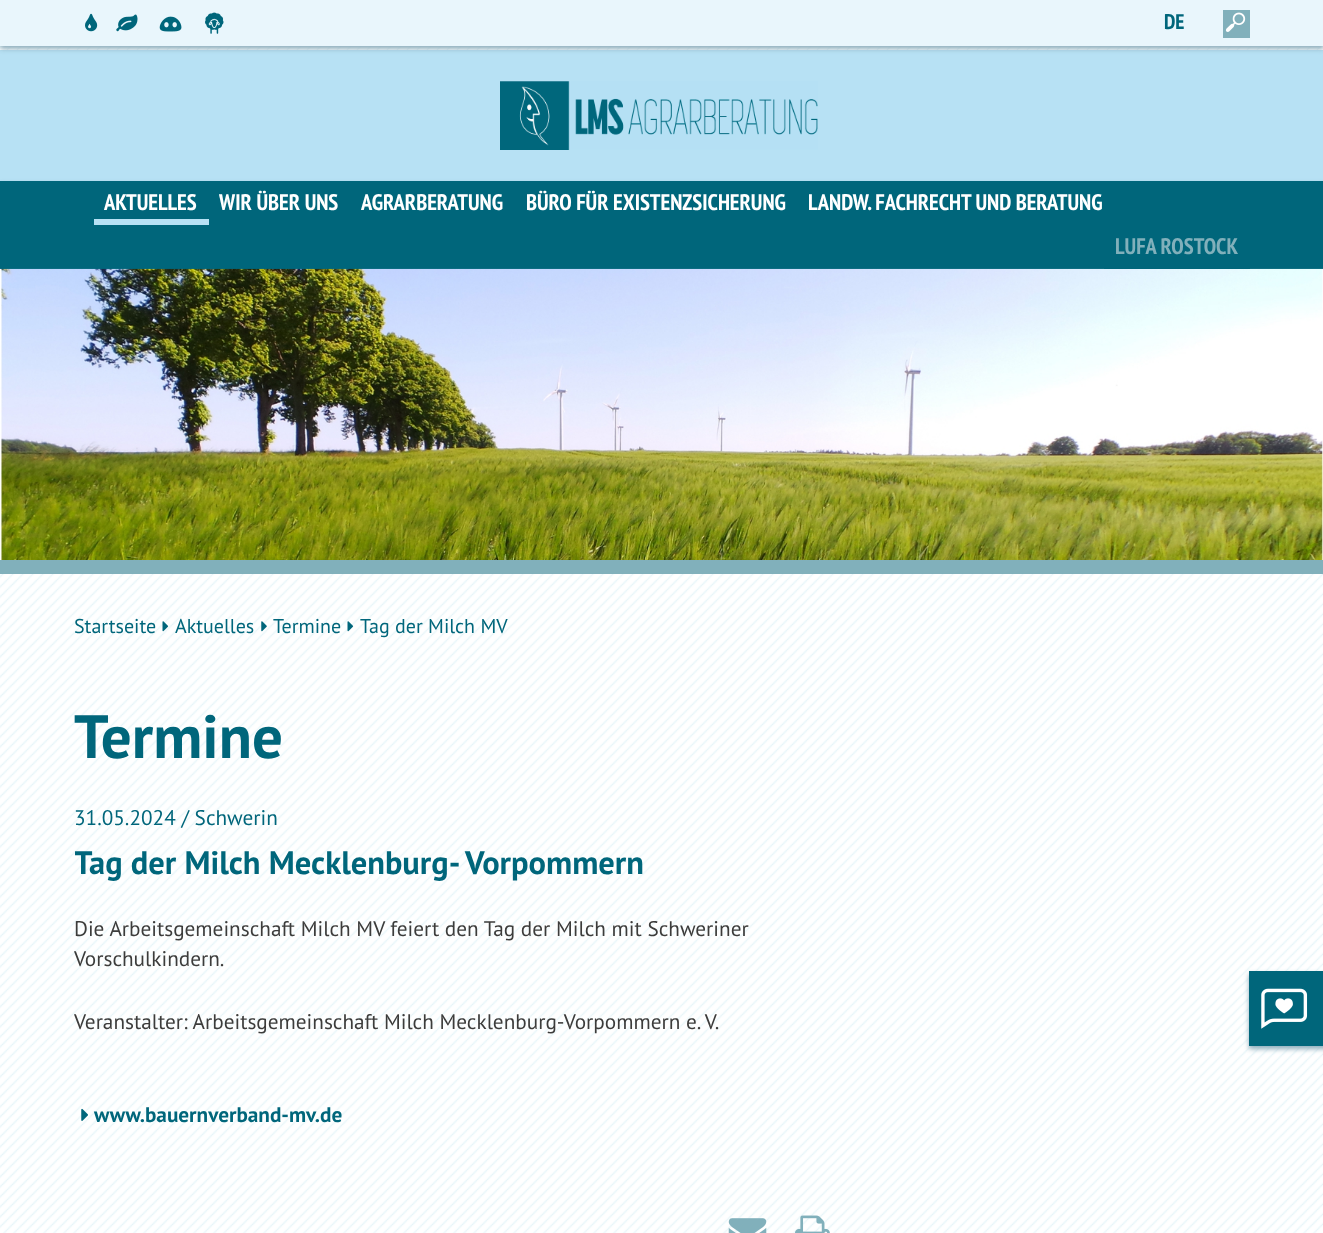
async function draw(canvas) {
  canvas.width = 1323
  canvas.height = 1233
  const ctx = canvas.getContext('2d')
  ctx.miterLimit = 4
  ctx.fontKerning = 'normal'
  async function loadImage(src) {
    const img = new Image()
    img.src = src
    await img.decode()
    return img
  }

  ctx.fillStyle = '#fff'
  ctx.fillRect(0, 0, 1323, 1233)
  ctx.drawImage(await loadImage('image0.png'), 0, 46, 1323, 1187)
  ctx.fillStyle = '#b7e1f4'
  ctx.fillRect(0, 50, 1323, 131)
  ctx.fillStyle = '#8cadbc'
  ctx.filter = 'blur(2.5px)'
  ctx.beginPath()
  ctx.rect(0, 3, 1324, 46)
  ctx.fill()
  ctx.filter = 'none'
  ctx.fillStyle = '#e9f6fc'
  ctx.fillRect(0, 0, 1323, 46)
  ctx.drawImage(await loadImage('image1.png'), 85, 13, 13, 19)
  ctx.drawImage(await loadImage('image2.png'), 116, 14, 22, 18)
  ctx.drawImage(await loadImage('image3.png'), 159, 16, 23, 16)
  ctx.drawImage(await loadImage('image4.png'), 205, 12, 19, 22)
  ctx.font = 'bold 21.25px PT Sans Narrow'
  ctx.fillStyle = '#00667b'
  ctx.fillText('DE', 1164, 29)
  ctx.fillStyle = '#81b0bb'
  ctx.fillRect(1223, 10, 27, 28)
  ctx.drawImage(await loadImage('image5.png'), 1225, 12, 21, 20)
  ctx.drawImage(await loadImage('image6.png'), 500, 81, 318, 69)
  ctx.fillStyle = '#8cadbc'
  ctx.filter = 'blur(2.5px)'
  ctx.beginPath()
  ctx.rect(0, 184, 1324, 87)
  ctx.fill()
  ctx.filter = 'none'
  ctx.fillStyle = '#00667b'
  ctx.fillRect(0, 181, 1323, 88)
  ctx.fillStyle = '#b7e1f4'
  ctx.fillRect(94, 219, 115, 6)
  ctx.font = 'bold 22.5px PT Sans Narrow'
  ctx.fillStyle = '#fff'
  ctx.fillText('AKTUELLES', 104, 210)
  ctx.fillText('WIR ÜBER UNS', 219, 210)
  ctx.fillText('AGRARBERATUNG', 361, 210)
  ctx.fillText('BÜRO FÜR EXISTENZSICHERUNG', 526, 210)
  ctx.fillText('LANDW. FACHRECHT UND BERATUNG', 808, 210)
  ctx.drawImage(await loadImage('image7.png'), 0, 268, 1323, 292)
  ctx.fillStyle = '#00667b'
  ctx.fillRect(1104, 268, 146, 1)
  ctx.fillStyle = '#81b0bb'
  ctx.fillText('LUFA ROSTOCK', 1115, 254)
  ctx.fillRect(0, 560, 1323, 14)
  ctx.font = '20px PT Sans'
  ctx.fillStyle = '#00667b'
  ctx.fillText('Startseite', 74, 633)
  ctx.drawImage(await loadImage('image8.png'), 162, 621, 7, 11)
  ctx.fillText('Aktuelles', 175, 633)
  ctx.drawImage(await loadImage('image9.png'), 261, 621, 6, 11)
  ctx.fillText('Termine', 273, 633)
  ctx.drawImage(await loadImage('image10.png'), 347, 621, 7, 11)
  ctx.fillText('Tag der Milch MV', 360, 633)
  ctx.font = 'bold 61px PT Sans'
  ctx.fillText('Termine', 74, 758)
  ctx.font = '21.25px PT Sans'
  ctx.fillText('31.05.2024 / Schwerin', 74, 825)
  ctx.save()
  ctx.beginPath()
  ctx.rect(75, 803, 770, 365)
  ctx.clip()
  ctx.font = 'bold 32.5px PT Sans'
  ctx.fillText('Tag der Milch Mecklenburg- Vorpommern', 74, 874)
  ctx.restore()
  ctx.fillStyle = '#3c3c3b'
  ctx.fillText('Die Arbeitsgemeinschaft Milch MV feiert den Tag der Milch mit Schweriner', 74, 936)
  ctx.fillText('Vorschulkindern.', 74, 966)
  ctx.fillText('Veranstalter: Arbeitsgemeinschaft Milch Mecklenburg-Vorpommern e. V.', 74, 1029)
  ctx.drawImage(await loadImage('image11.png'), 81, 1108, 7, 13)
  ctx.font = 'bold 21.25px PT Sans'
  ctx.fillStyle = '#00667b'
  ctx.fillText('www.bauernverband-mv.de', 94, 1122)
  ctx.drawImage(await loadImage('image12.png'), 728, 1218, 39, 15)
  ctx.drawImage(await loadImage('image13.png'), 795, 1215, 35, 18)
  ctx.fillStyle = '#8cadbc'
  ctx.filter = 'blur(2.5px)'
  ctx.beginPath()
  ctx.rect(1249, 974, 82, 75)
  ctx.fill()
  ctx.filter = 'none'
  ctx.fillStyle = '#00667b'
  ctx.fillRect(1249, 971, 74, 75)
  ctx.drawImage(await loadImage('image14.png'), 1261, 988, 47, 41)
}

draw(document.querySelector('canvas'))
